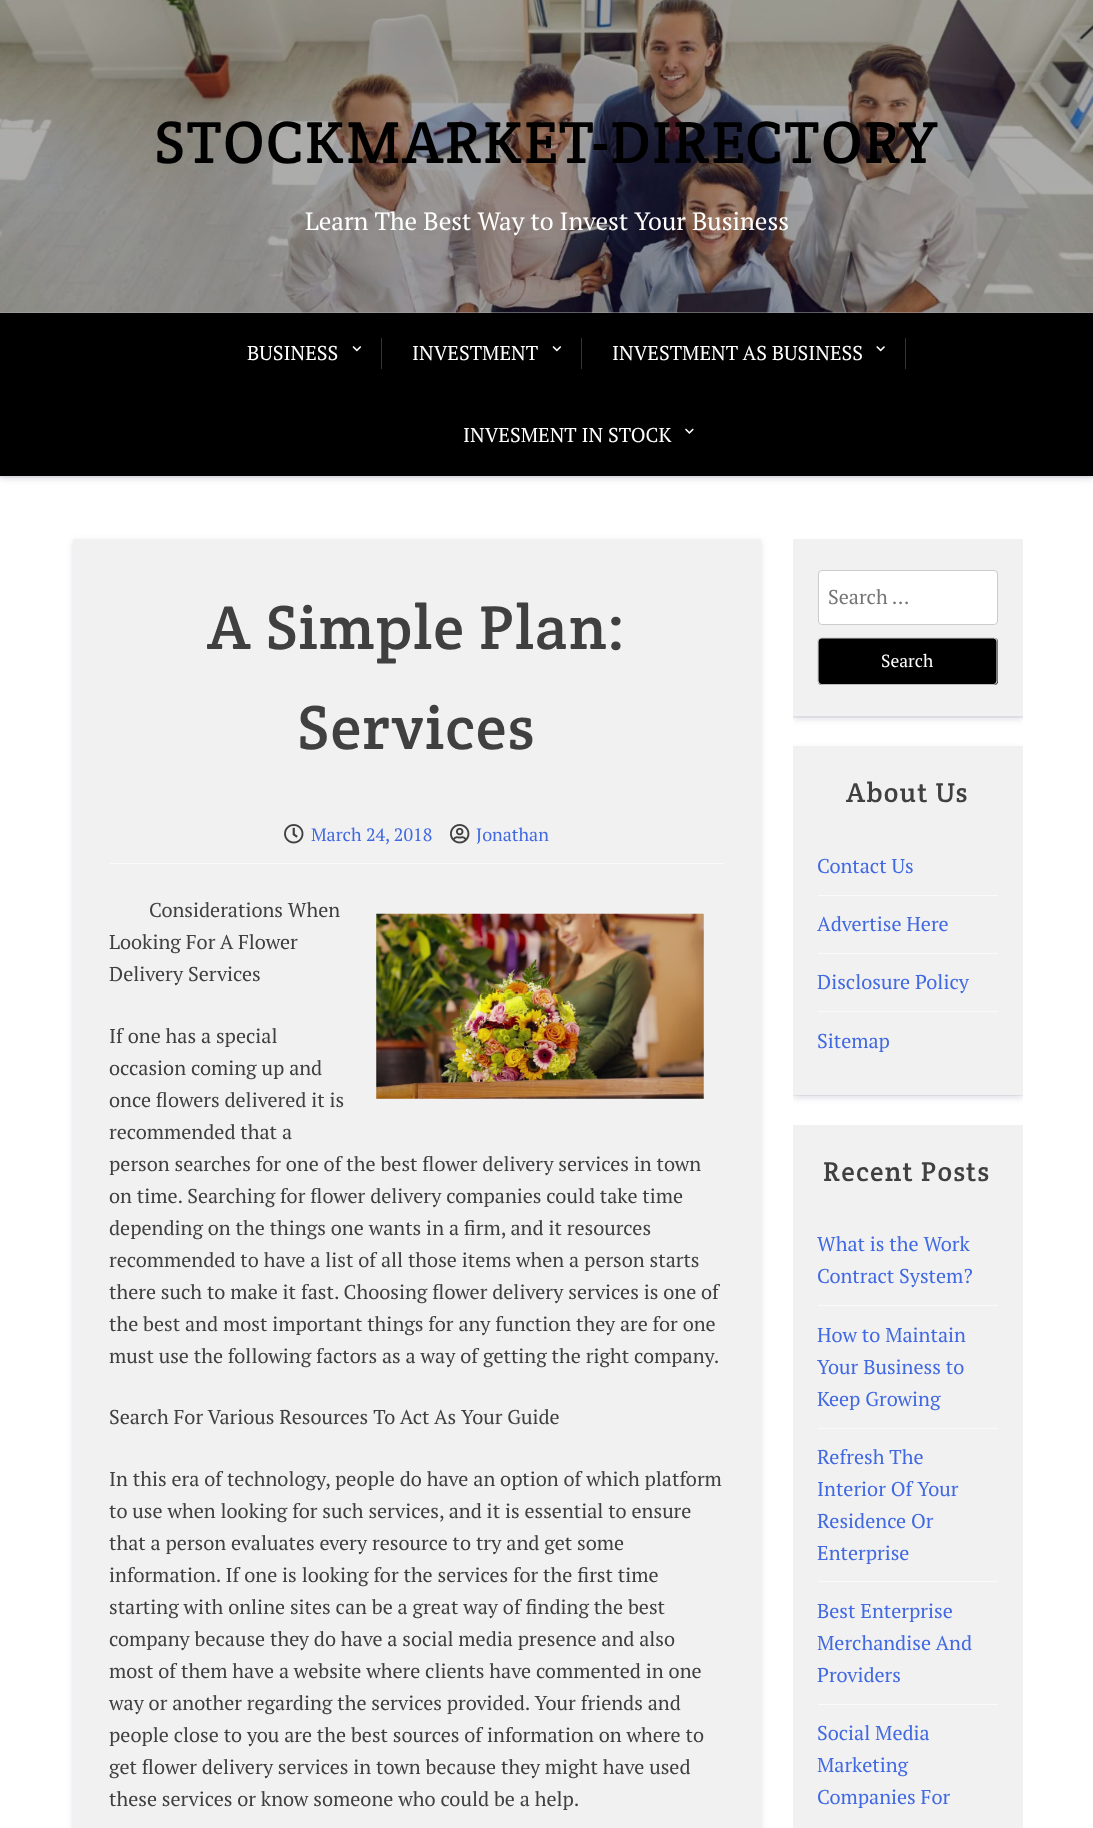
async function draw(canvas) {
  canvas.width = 1093
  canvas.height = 1828
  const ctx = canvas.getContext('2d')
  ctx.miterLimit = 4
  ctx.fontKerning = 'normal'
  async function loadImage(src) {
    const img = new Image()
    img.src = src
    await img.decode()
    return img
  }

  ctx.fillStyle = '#fff'
  ctx.fillRect(0, 0, 1093, 1828)
  ctx.fillStyle = '#0000000d'
  ctx.filter = 'blur(0.5px)'
  ctx.beginPath()
  ctx.rect(0, 1, 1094, 477)
  ctx.fill()
  ctx.filter = 'none'
  ctx.fillStyle = '#32326926'
  ctx.filter = 'blur(3px)'
  ctx.beginPath()
  ctx.rect(0, 3, 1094, 476)
  ctx.fill()
  ctx.filter = 'none'
  ctx.fillStyle = '#a9a9a9'
  ctx.fillRect(0, 312, 1093, 1)
  ctx.drawImage(await loadImage('image0.png'), 0, 0, 1093, 313)
  ctx.letterSpacing = '1.25px'
  ctx.font = '60px Crete Round'
  ctx.fillStyle = '#000'
  ctx.fillText('STOCKMARKET-DIRECTORY', 154, 163)
  ctx.letterSpacing = '0px'
  ctx.font = '25px PT Serif'
  ctx.fillStyle = '#fff'
  ctx.fillText('Learn The Best Way to Invest Your Business', 305, 230)
  ctx.fillStyle = '#000'
  ctx.fillRect(0, 313, 1093, 163)
  ctx.font = '20px PT Serif'
  ctx.fillStyle = '#fff'
  ctx.fillText('BUSINESS', 247, 360)
  ctx.drawImage(await loadImage('image1.png'), 352, 346, 10, 6)
  ctx.fillStyle = '#333'
  ctx.fillRect(381, 338, 1, 31)
  ctx.fillStyle = '#fff'
  ctx.fillText('INVESTMENT', 412, 360)
  ctx.drawImage(await loadImage('image1.png'), 552, 346, 10, 6)
  ctx.fillStyle = '#333'
  ctx.fillRect(581, 338, 1, 31)
  ctx.fillStyle = '#fff'
  ctx.fillText('INVESTMENT AS BUSINESS', 612, 360)
  ctx.drawImage(await loadImage('image2.png'), 876, 346, 9, 6)
  ctx.fillStyle = '#333'
  ctx.fillRect(905, 338, 1, 31)
  ctx.fillStyle = '#fff'
  ctx.fillText('INVESMENT IN STOCK', 463, 442)
  ctx.drawImage(await loadImage('image3.png'), 685, 428, 9, 6)
  ctx.fillStyle = '#32326926'
  ctx.filter = 'blur(3px)'
  ctx.beginPath()
  ctx.rect(73, 541, 688, 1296)
  ctx.fill()
  ctx.filter = 'none'
  ctx.fillStyle = '#f1f1f1'
  ctx.fillRect(73, 539, 688, 1289)
  ctx.fillStyle = '#fafafa'
  ctx.fillRect(110, 863, 614, 1)
  ctx.letterSpacing = '1.25px'
  ctx.font = '62.5px Crete Round'
  ctx.fillStyle = '#404040'
  ctx.fillText('A Simple Plan:', 207, 649)
  ctx.fillText('Services', 297, 749)
  ctx.drawImage(await loadImage('image4.png'), 284, 824, 20, 20)
  ctx.letterSpacing = '0px'
  ctx.font = '18px PT Serif'
  ctx.fillStyle = '#4169e1'
  ctx.fillText('March 24, 2018', 311, 841)
  ctx.drawImage(await loadImage('image5.png'), 450, 824, 20, 20)
  ctx.fillText('Jonathan', 476, 841)
  ctx.font = '20px PT Serif'
  ctx.fillStyle = '#404040'
  ctx.fillText('Considerations When', 149, 917)
  ctx.fillText('Looking For A Flower', 109, 949)
  ctx.drawImage(await loadImage('image6.png'), 376, 913, 328, 186)
  ctx.fillText('Delivery Services', 109, 981)
  ctx.fillText('If one has a special', 109, 1043)
  ctx.fillText('occasion coming up and', 109, 1075)
  ctx.fillText('once flowers delivered it is', 109, 1107)
  ctx.fillText('recommended that a', 109, 1139)
  ctx.fillText('person searches for one of the best flower delivery services in town', 109, 1171)
  ctx.fillText('on time. Searching for flower delivery companies could take time', 109, 1203)
  ctx.fillText('depending on the things one wants in a firm, and it resources', 109, 1235)
  ctx.fillText('recommended to have a list of all those items when a person starts', 109, 1267)
  ctx.fillText('there such to make it fast. Choosing flower delivery services is one of', 109, 1299)
  ctx.fillText('the best and most important things for any function they are for one', 109, 1331)
  ctx.fillText('must use the following factors as a way of getting the right company.', 109, 1363)
  ctx.fillText('Search For Various Resources To Act As Your Guide', 109, 1424)
  ctx.fillText('In this era of technology, people do have an option of which platform', 109, 1486)
  ctx.fillText('to use when looking for such services, and it is essential to ensure', 109, 1518)
  ctx.fillText('that a person evaluates every resource to try and get some', 109, 1550)
  ctx.fillText('information. If one is looking for the services for the first time', 109, 1582)
  ctx.fillText('starting with online sites can be a great way of finding the best', 109, 1614)
  ctx.fillText('company because they do have a social media presence and also', 109, 1646)
  ctx.fillText('most of them have a website where clients have commented in one', 109, 1678)
  ctx.fillText('way or another regarding the services provided. Your friends and', 109, 1710)
  ctx.fillText('people close to you are the best sources of information on where to', 109, 1742)
  ctx.fillText('get flower delivery services in town because they might have used', 109, 1774)
  ctx.fillText('these services or know someone who could be a help.', 109, 1806)
  ctx.fillStyle = '#0000000d'
  ctx.filter = 'blur(0.5px)'
  ctx.beginPath()
  ctx.rect(793, 540, 230, 178)
  ctx.fill()
  ctx.filter = 'none'
  ctx.save()
  ctx.beginPath()
  ctx.rect(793, 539, 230, 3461)
  ctx.clip()
  ctx.fillStyle = '#32326926'
  ctx.filter = 'blur(3px)'
  ctx.beginPath()
  ctx.rect(793, 541, 230, 178)
  ctx.fill()
  ctx.filter = 'none'
  ctx.restore()
  ctx.fillStyle = '#f1f1f1'
  ctx.fillRect(793, 539, 230, 177)
  ctx.fillStyle = '#fff'
  ctx.beginPath()
  ctx.roundRect(818.5, 570.5, 179, 54, 3.5)
  ctx.fill()
  ctx.strokeStyle = '#ccc'
  ctx.stroke()
  ctx.fillStyle = '#757575'
  ctx.fillText('Search …', 828, 604)
  ctx.fillStyle = '#000'
  ctx.beginPath()
  ctx.roundRect(818, 638, 180, 47, 4)
  ctx.fill()
  ctx.beginPath()
  ctx.moveTo(996, 683.5)
  ctx.lineTo(994, 684.5)
  ctx.lineTo(821, 684.5)
  ctx.lineTo(819, 683.5)
  ctx.strokeStyle = '#bbb'
  ctx.lineWidth = 1.2
  ctx.stroke()
  ctx.beginPath()
  ctx.moveTo(819, 683.5)
  ctx.lineTo(818, 681)
  ctx.lineTo(818, 641)
  ctx.lineTo(819, 639)
  ctx.lineTo(821, 638)
  ctx.lineTo(994, 638)
  ctx.lineTo(996, 639)
  ctx.lineTo(997, 641)
  ctx.lineTo(997, 681)
  ctx.lineTo(996, 683.5)
  ctx.strokeStyle = '#ccc'
  ctx.stroke()
  ctx.font = '17.5px PT Serif'
  ctx.fillStyle = '#fff'
  ctx.fillText('Search', 881, 667)
  ctx.fillStyle = '#0000000d'
  ctx.filter = 'blur(0.5px)'
  ctx.beginPath()
  ctx.rect(793, 748, 230, 348)
  ctx.fill()
  ctx.filter = 'none'
  ctx.save()
  ctx.beginPath()
  ctx.rect(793, 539, 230, 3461)
  ctx.clip()
  ctx.fillStyle = '#32326926'
  ctx.filter = 'blur(3px)'
  ctx.beginPath()
  ctx.rect(793, 749, 230, 349)
  ctx.fill()
  ctx.filter = 'none'
  ctx.restore()
  ctx.fillStyle = '#f1f1f1'
  ctx.fillRect(793, 746, 230, 349)
  ctx.letterSpacing = '1.25px'
  ctx.font = '27.5px Crete Round'
  ctx.fillStyle = '#404040'
  ctx.fillText('About Us', 846, 802)
  ctx.fillStyle = '#fafafa'
  ctx.fillRect(818, 895, 180, 1)
  ctx.letterSpacing = '0px'
  ctx.font = '20px PT Serif'
  ctx.fillStyle = '#4169e1'
  ctx.fillText('Contact Us', 817, 873)
  ctx.fillStyle = '#fafafa'
  ctx.fillRect(818, 953, 180, 1)
  ctx.fillStyle = '#4169e1'
  ctx.fillText('Advertise Here', 817, 931)
  ctx.fillStyle = '#fafafa'
  ctx.fillRect(818, 1011, 180, 1)
  ctx.fillStyle = '#4169e1'
  ctx.fillText('Disclosure Policy', 817, 989)
  ctx.fillText('Sitemap', 817, 1048)
  ctx.fillStyle = '#f1f1f1'
  ctx.fillRect(793, 1125, 230, 703)
  ctx.letterSpacing = '1.25px'
  ctx.font = '27.5px Crete Round'
  ctx.fillStyle = '#404040'
  ctx.fillText('Recent Posts', 823, 1181)
  ctx.fillStyle = '#fafafa'
  ctx.fillRect(818, 1305, 180, 1)
  ctx.letterSpacing = '0px'
  ctx.font = '20px PT Serif'
  ctx.fillStyle = '#4169e1'
  ctx.fillText('What is the Work', 817, 1251)
  ctx.fillText('Contract System?', 817, 1283)
  ctx.fillStyle = '#fafafa'
  ctx.fillRect(818, 1428, 180, 1)
  ctx.fillStyle = '#4169e1'
  ctx.fillText('How to Maintain', 817, 1342)
  ctx.fillText('Your Business to', 817, 1374)
  ctx.fillText('Keep Growing', 817, 1406)
  ctx.fillStyle = '#fafafa'
  ctx.fillRect(818, 1581, 180, 1)
  ctx.fillStyle = '#4169e1'
  ctx.fillText('Refresh The', 817, 1464)
  ctx.fillText('Interior Of Your', 817, 1496)
  ctx.fillText('Residence Or', 817, 1528)
  ctx.fillText('Enterprise', 817, 1560)
  ctx.fillStyle = '#fafafa'
  ctx.fillRect(818, 1704, 180, 1)
  ctx.fillStyle = '#4169e1'
  ctx.fillText('Best Enterprise', 817, 1618)
  ctx.fillText('Merchandise And', 817, 1650)
  ctx.fillText('Providers', 817, 1682)
  ctx.fillText('Social Media', 817, 1740)
  ctx.fillText('Marketing', 817, 1772)
  ctx.fillText('Companies For', 817, 1804)
}

draw(document.querySelector('canvas'))
